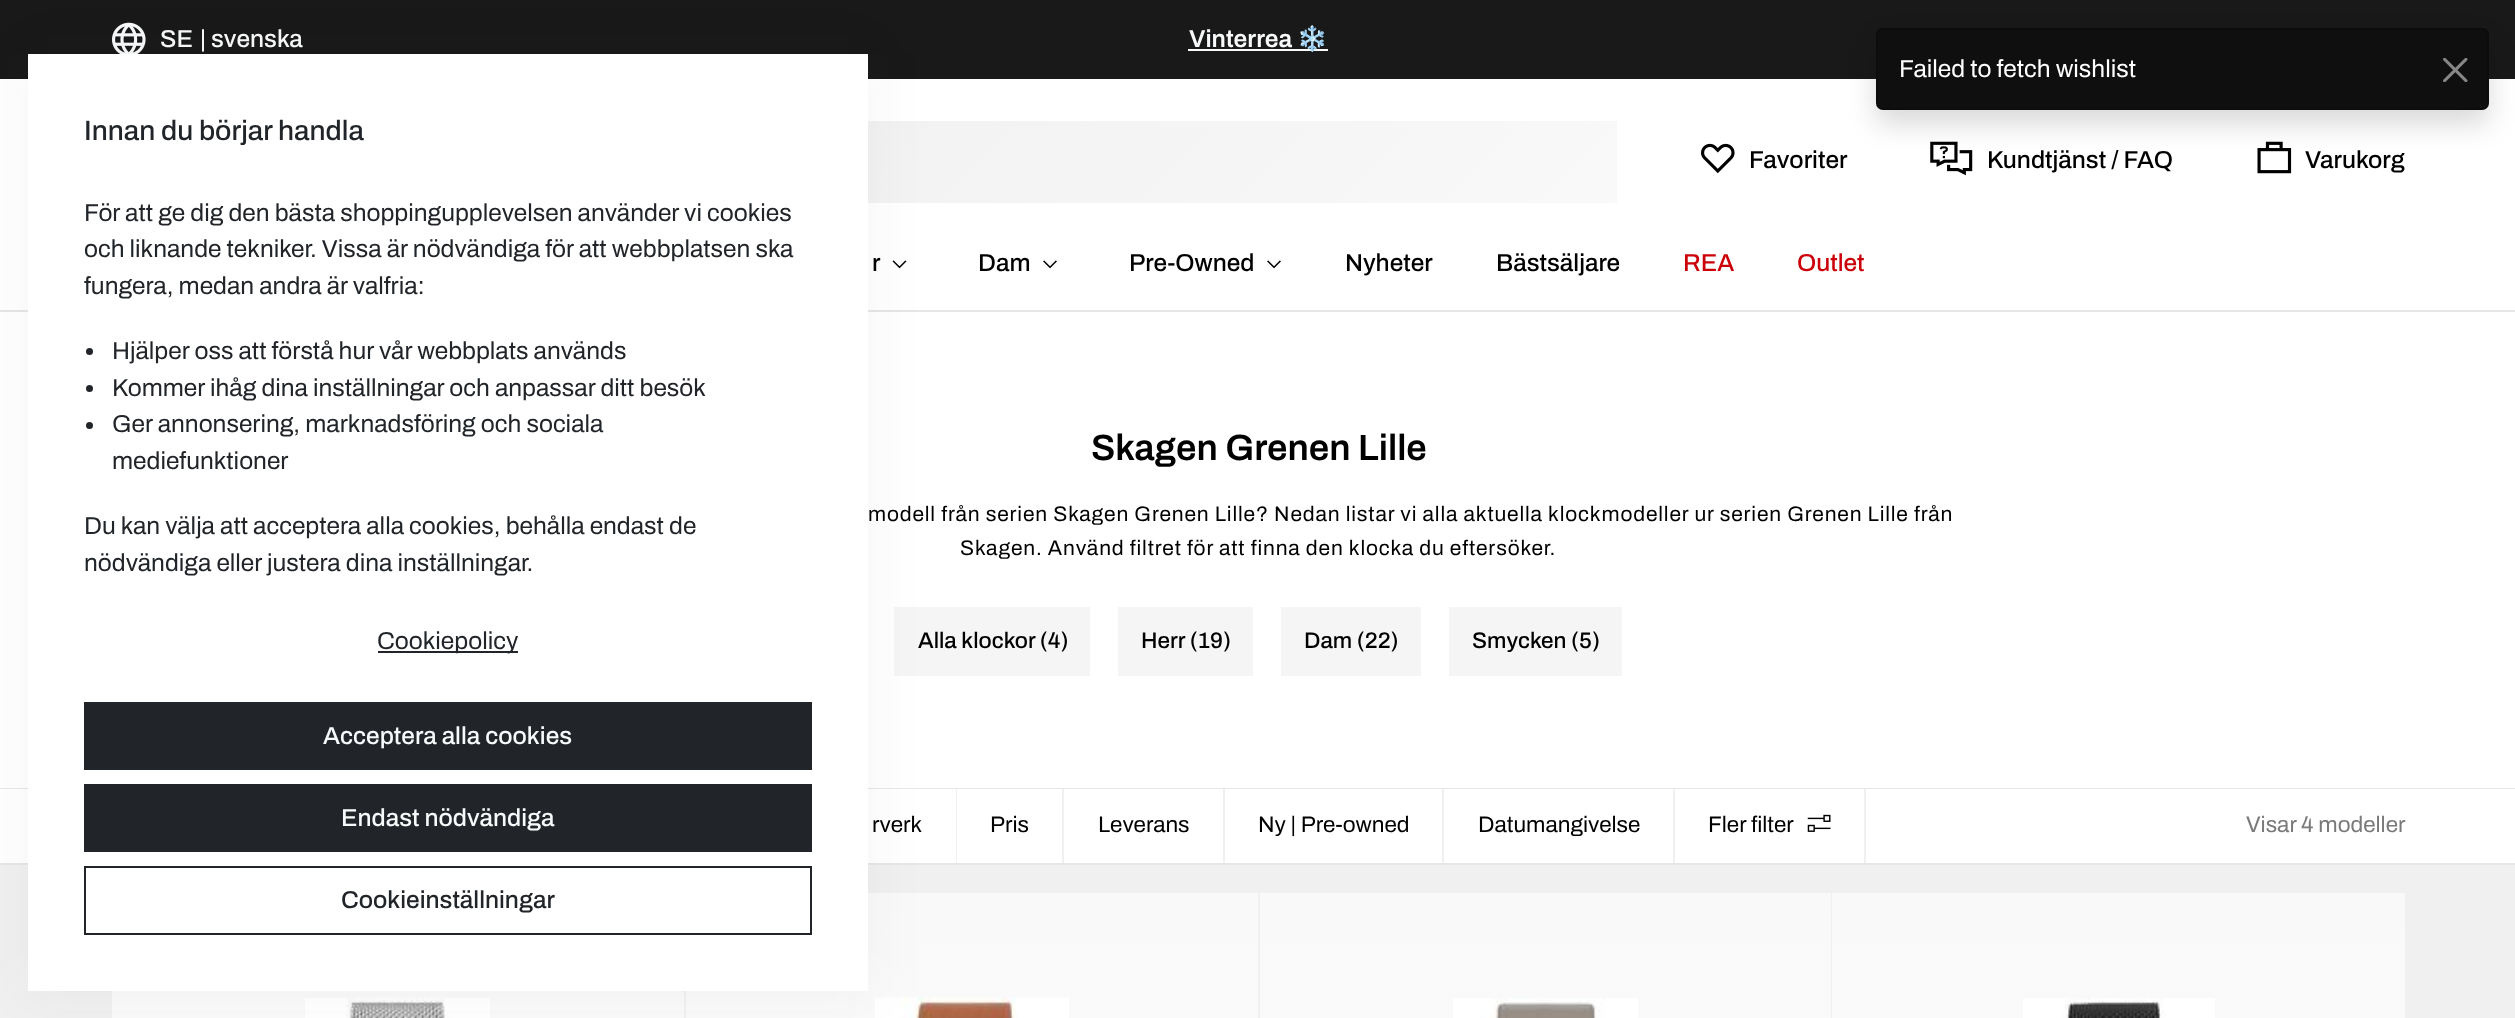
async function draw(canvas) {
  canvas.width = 2515
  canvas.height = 1018
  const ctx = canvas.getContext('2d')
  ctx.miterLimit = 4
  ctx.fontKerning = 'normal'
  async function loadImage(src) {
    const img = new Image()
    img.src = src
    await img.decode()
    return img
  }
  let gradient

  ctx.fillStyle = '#fff'
  ctx.fillRect(0, 0, 2515, 1018)
  ctx.fillStyle = '#191919'
  ctx.fillRect(0, 0, 2515, 79)
  ctx.drawImage(await loadImage('image0.png'), 112, 22, 34, 32)
  ctx.font = '500 24.5px Archivo'
  ctx.fillStyle = '#f8f9fa'
  ctx.fillText('SE', 160, 47)
  ctx.fillText('| svenska', 200, 47)
  ctx.font = '600 24.5px Archivo'
  ctx.fillText('Vinterrea', 1189, 47)
  ctx.fillRect(1188, 49, 140, 2)
  ctx.font = 'bold 24.5px Noto Color Emoji'
  ctx.fillText('❄️', 1297, 47)
  gradient = ctx.createLinearGradient(620, -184, 1312, 508)
  gradient.addColorStop(0, '#ededed')
  gradient.addColorStop(1, '#f9f9f9')
  ctx.fillStyle = gradient
  ctx.fillRect(868, 121, 749, 82)
  ctx.drawImage(await loadImage('image1.png'), 1701, 143, 34, 31)
  ctx.font = '500 24.5px Archivo'
  ctx.fillStyle = '#000'
  ctx.fillText('Favoriter', 1749, 168)
  ctx.drawImage(await loadImage('image2.png'), 1930, 141, 43, 35)
  ctx.fillText('Kundtjänst / FAQ', 1987, 168)
  ctx.drawImage(await loadImage('image3.png'), 2257, 141, 35, 33)
  ctx.fillText('Varukorg', 2305, 168)
  ctx.fillStyle = '#e6e6e6'
  ctx.fillRect(0, 310, 2515, 2)
  ctx.fillStyle = '#000'
  ctx.fillText('r', 872, 271)
  ctx.drawImage(await loadImage('image4.png'), 892, 260, 15, 9)
  ctx.fillText('Dam', 978, 271)
  ctx.drawImage(await loadImage('image5.png'), 1043, 260, 14, 9)
  ctx.fillText('Pre-Owned', 1129, 271)
  ctx.drawImage(await loadImage('image5.png'), 1267, 260, 14, 9)
  ctx.fillText('Nyheter', 1345, 271)
  ctx.fillText('Bästsäljare', 1496, 271)
  ctx.fillStyle = '#cc0008'
  ctx.fillText('REA', 1683, 271)
  ctx.fillText('Outlet', 1797, 271)
  ctx.fillStyle = '#00000026'
  ctx.filter = 'blur(14px)'
  ctx.beginPath()
  ctx.roundRect(1876, 42, 613, 82, 7)
  ctx.fill()
  ctx.filter = 'none'
  ctx.fillStyle = '#0f0f0f'
  ctx.beginPath()
  ctx.roundRect(1876, 28, 613, 82, 7)
  ctx.fill()
  ctx.beginPath()
  ctx.roundRect(1877, 29, 611, 80, 6)
  ctx.strokeStyle = '#0000002e'
  ctx.lineWidth = 2
  ctx.stroke()
  ctx.font = '24.5px Archivo'
  ctx.fillStyle = '#fff'
  ctx.fillText('Failed to fetch wishlist', 1899, 77)
  ctx.drawImage(await loadImage('image6.png'), 2443, 58, 25, 24)
  ctx.fillStyle = '#e6e6e6'
  ctx.fillRect(0, 788, 2515, 1)
  ctx.fillStyle = '#f5f5f5'
  ctx.fillRect(894, 607, 196, 69)
  ctx.fillStyle = '#e6e6e6'
  ctx.fillRect(0, 863, 2515, 2)
  ctx.fillStyle = '#f0f0f0'
  ctx.fillRect(0, 865, 2515, 153)
  gradient = ctx.createLinearGradient(398, 893, 398, 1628)
  gradient.addColorStop(0, '#f9f9f9')
  gradient.addColorStop(1, '#fcfcfc')
  ctx.fillStyle = gradient
  ctx.fillRect(112, 991, 572, 27)
  ctx.drawImage(await loadImage('image8.png'), 305, 998, 185, 20)
  gradient = ctx.createLinearGradient(972, 893, 972, 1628)
  gradient.addColorStop(0, '#f9f9f9')
  gradient.addColorStop(1, '#fcfcfc')
  ctx.fillStyle = gradient
  ctx.fillRect(686, 893, 572, 125)
  ctx.drawImage(await loadImage('image9.png'), 875, 997, 194, 21)
  ctx.fillStyle = '#2222220d'
  ctx.filter = 'blur(28px)'
  ctx.beginPath()
  ctx.rect(28, 54, 840, 937)
  ctx.fill()
  ctx.filter = 'none'
  ctx.fillStyle = '#fff'
  ctx.fillRect(28, 54, 840, 937)
  ctx.font = '500 28px Archivo'
  ctx.fillStyle = '#212529'
  ctx.fillText('Innan du börjar handla', 84, 140)
  ctx.font = '24.5px Archivo'
  ctx.fillText('För att ge dig den bästa shoppingupplevelsen använder vi cookies', 84, 221)
  ctx.fillText('och liknande tekniker. Vissa är nödvändiga för att webbplatsen ska', 84, 257)
  ctx.fillText('fungera, medan andra är valfria:', 84, 294)
  ctx.beginPath()
  ctx.arc(89.5, 351.5, 3.5, 0, 2 * Math.PI)
  ctx.fill()
  ctx.fillText('Hjälper oss att förstå hur vår webbplats används', 112, 359)
  ctx.beginPath()
  ctx.arc(89.5, 388.5, 3.5, 0, 2 * Math.PI)
  ctx.fill()
  ctx.fillText('Kommer ihåg dina inställningar och anpassar ditt besök', 112, 396)
  ctx.beginPath()
  ctx.arc(89.5, 425.5, 3.5, 0, 2 * Math.PI)
  ctx.fill()
  ctx.fillText('Ger annonsering, marknadsföring och sociala', 112, 432)
  ctx.fillText('mediefunktioner', 112, 469)
  ctx.fillText('Du kan välja att acceptera alla cookies, behålla endast de', 84, 534)
  ctx.fillText('nödvändiga eller justera dina inställningar.', 84, 571)
  ctx.fillRect(378, 651, 140, 2)
  ctx.fillText('Cookiepolicy', 377, 649)
  ctx.fillRect(84, 702, 728, 68)
  ctx.font = '500 24.5px Archivo'
  ctx.fillStyle = '#f8f9fa'
  ctx.fillText('Acceptera alla cookies', 323, 744)
  ctx.fillStyle = '#212529'
  ctx.fillRect(84, 784, 728, 68)
  ctx.fillStyle = '#f8f9fa'
  ctx.fillText('Endast nödvändiga', 341, 826)
  ctx.strokeStyle = '#212529'
  ctx.strokeRect(85, 867, 726, 67)
  ctx.fillStyle = '#212529'
  ctx.fillText('Cookieinställningar', 341, 908)
  ctx.font = '600 36.5px Archivo'
  ctx.fillStyle = '#000'
  ctx.fillText('Skagen Grenen Lille', 1091, 460)
  ctx.letterSpacing = '0.84px'
  ctx.font = '21px Archivo'
  ctx.fillText('modell från serien Skagen Grenen Lille? Nedan listar vi alla aktuella klockmodeller ur serien Grenen Lille från', 868, 521)
  ctx.fillText('Skagen. Använd filtret för att finna den klocka du eftersöker.', 960, 555)
  ctx.letterSpacing = '0px'
  ctx.font = '500 22.5px Archivo'
  ctx.fillText('Alla klockor (4)', 918, 648)
  ctx.fillStyle = '#f5f5f5'
  ctx.fillRect(1118, 607, 135, 69)
  ctx.fillStyle = '#000'
  ctx.fillText('Herr (19)', 1141, 648)
  ctx.fillStyle = '#f5f5f5'
  ctx.fillRect(1281, 607, 140, 69)
  ctx.fillStyle = '#000'
  ctx.fillText('Dam (22)', 1304, 648)
  ctx.fillStyle = '#f5f5f5'
  ctx.fillRect(1449, 607, 173, 69)
  ctx.fillStyle = '#000'
  ctx.fillText('Smycken (5)', 1472, 648)
  ctx.fillStyle = '#f0f0f0'
  ctx.fillRect(956, 789, 1, 74)
  ctx.font = '22.5px Archivo'
  ctx.fillStyle = '#000'
  ctx.fillText('rverk', 872, 832)
  ctx.fillStyle = '#f0f0f0'
  ctx.fillRect(1062, 789, 2, 74)
  ctx.fillStyle = '#000'
  ctx.fillText('Pris', 990, 832)
  ctx.fillStyle = '#f0f0f0'
  ctx.fillRect(1223, 789, 2, 74)
  ctx.fillStyle = '#000'
  ctx.fillText('Leverans', 1098, 832)
  ctx.fillStyle = '#f0f0f0'
  ctx.fillRect(1442, 789, 2, 74)
  ctx.fillStyle = '#000'
  ctx.fillText('Ny | Pre-owned', 1258, 832)
  ctx.fillStyle = '#f0f0f0'
  ctx.fillRect(1673, 789, 2, 74)
  ctx.fillStyle = '#000'
  ctx.fillText('Datumangivelse', 1478, 832)
  ctx.fillStyle = '#f0f0f0'
  ctx.fillRect(1864, 789, 2, 74)
  ctx.fillStyle = '#000'
  ctx.fillText('Fler filter', 1708, 832)
  ctx.drawImage(await loadImage('image7.png'), 1807, 814, 24, 18)
  ctx.fillStyle = '#7a7a7a'
  ctx.fillText('Visar 4 modeller', 2246, 832)
  gradient = ctx.createLinearGradient(1545, 893, 1545, 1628)
  gradient.addColorStop(0, '#f9f9f9')
  gradient.addColorStop(1, '#fcfcfc')
  ctx.fillStyle = gradient
  ctx.fillRect(1260, 893, 571, 125)
  ctx.drawImage(await loadImage('image10.png'), 1453, 998, 185, 20)
  gradient = ctx.createLinearGradient(2118, 893, 2118, 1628)
  gradient.addColorStop(0, '#f9f9f9')
  gradient.addColorStop(1, '#fcfcfc')
  ctx.fillStyle = gradient
  ctx.fillRect(1832, 893, 573, 125)
  ctx.drawImage(await loadImage('image11.png'), 2023, 998, 192, 20)
}

draw(document.querySelector('canvas'))
